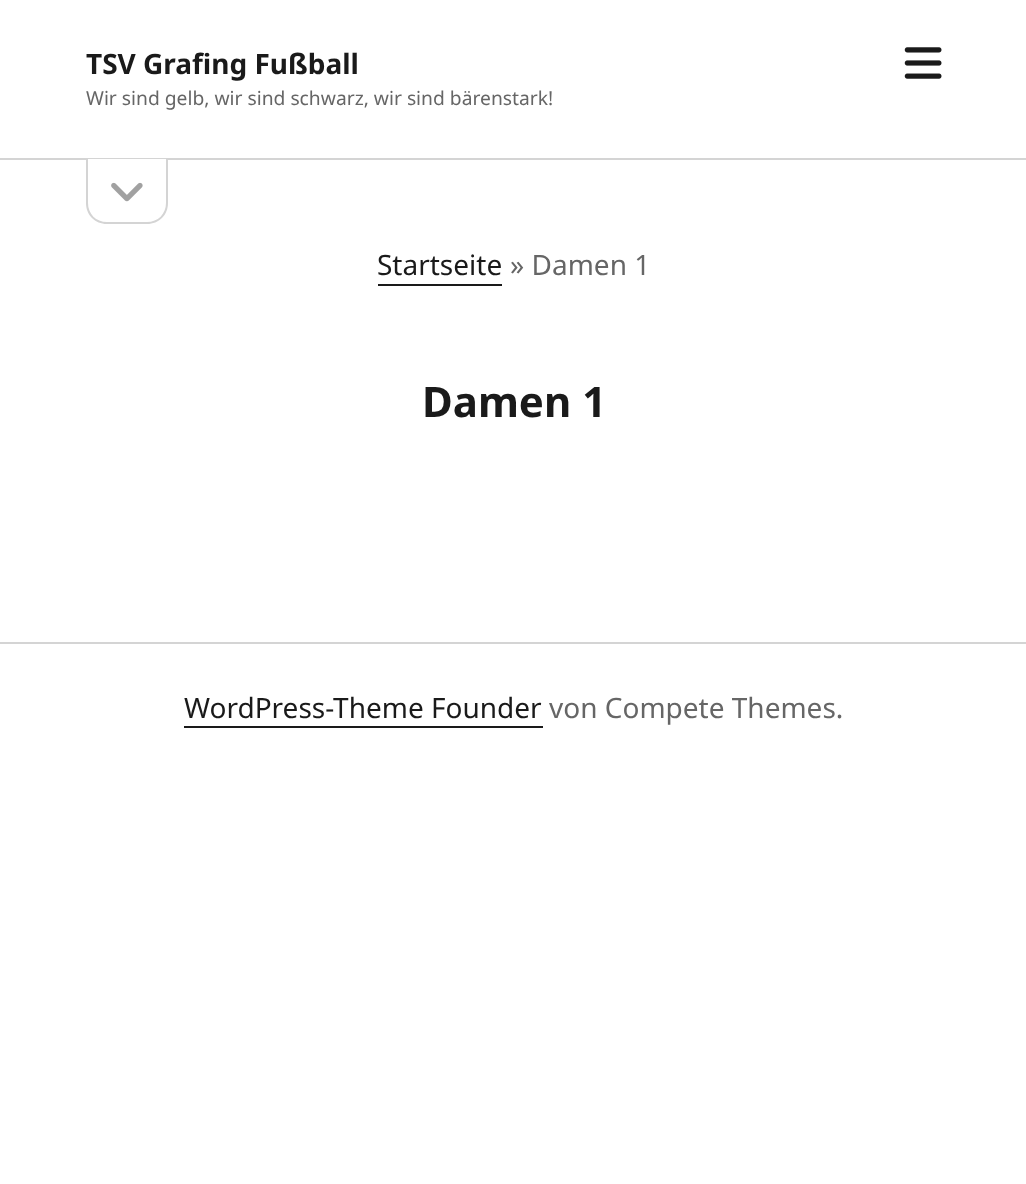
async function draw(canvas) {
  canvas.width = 1026
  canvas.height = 1184
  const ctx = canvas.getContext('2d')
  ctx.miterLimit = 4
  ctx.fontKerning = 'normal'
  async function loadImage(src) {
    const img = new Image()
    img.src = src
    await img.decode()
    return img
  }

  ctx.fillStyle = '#fff'
  ctx.fillRect(0, 0, 1026, 1184)
  ctx.fillStyle = '#d4d4d4'
  ctx.fillRect(0, 158, 1026, 2)
  ctx.font = 'bold 28px Noto Sans'
  ctx.fillStyle = '#1a1a1a'
  ctx.fillText('TSV Grafing Fußball', 86, 74)
  ctx.font = '19.25px Noto Sans'
  ctx.fillStyle = '#666'
  ctx.fillText('Wir sind gelb, wir sind schwarz, wir sind bärenstark!', 86, 105)
  ctx.drawImage(await loadImage('image0.png'), 904, 47, 38, 32)
  ctx.fillStyle = '#fff'
  ctx.beginPath()
  ctx.roundRect(86, 159, 82, 65, [0, 0, 21, 21])
  ctx.fill()
  ctx.fillStyle = '#d4d4d4'
  ctx.beginPath()
  ctx.moveTo(86, 159)
  ctx.lineTo(168, 159)
  ctx.lineTo(168, 203)
  ctx.bezierCurveTo(168, 215, 159, 224, 147, 224)
  ctx.lineTo(107, 224)
  ctx.bezierCurveTo(95, 224, 86, 215, 86, 203)
  ctx.closePath()
  ctx.moveTo(88, 159)
  ctx.lineTo(166, 159)
  ctx.lineTo(166, 203)
  ctx.bezierCurveTo(166, 214, 158, 222, 147, 222)
  ctx.lineTo(107, 222)
  ctx.bezierCurveTo(96, 222, 88, 214, 88, 203)
  ctx.closePath()
  ctx.fill('evenodd')
  ctx.drawImage(await loadImage('image1.png'), 111, 182, 32, 20)
  ctx.font = '28px Noto Sans'
  ctx.fillStyle = '#1a1a1a'
  ctx.fillText('Startseite', 377, 275)
  ctx.fillRect(378, 284, 124, 2)
  ctx.fillStyle = '#666'
  ctx.fillText('» Damen 1', 510, 275)
  ctx.font = 'bold 42px Noto Sans'
  ctx.fillStyle = '#1a1a1a'
  ctx.fillText('Damen 1', 422, 417)
  ctx.fillStyle = '#d4d4d4'
  ctx.fillRect(0, 642, 1026, 2)
  ctx.font = '28px Noto Sans'
  ctx.fillStyle = '#1a1a1a'
  ctx.fillText('WordPress-Theme Founder', 184, 718)
  ctx.fillStyle = '#666'
  ctx.fillText('von Compete Themes.', 549, 718)
  ctx.fillStyle = '#1a1a1a'
  ctx.fillRect(184, 726, 359, 2)
}

draw(document.querySelector('canvas'))
